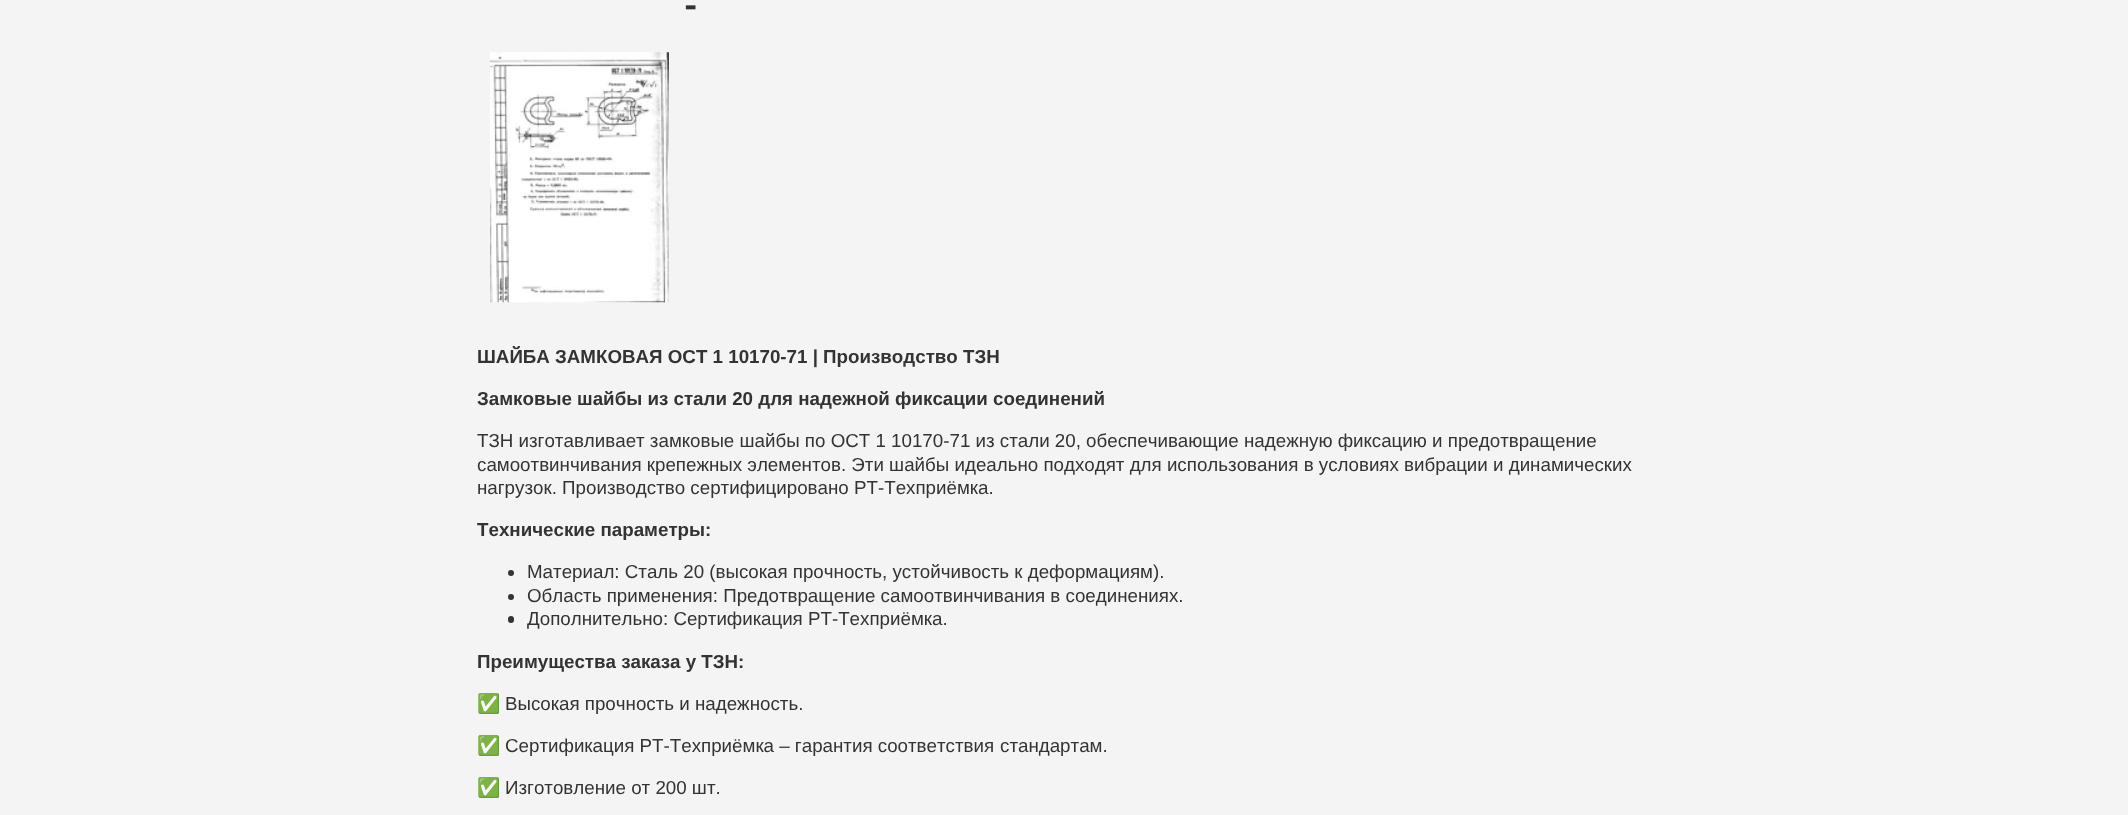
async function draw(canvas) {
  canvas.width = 2128
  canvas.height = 815
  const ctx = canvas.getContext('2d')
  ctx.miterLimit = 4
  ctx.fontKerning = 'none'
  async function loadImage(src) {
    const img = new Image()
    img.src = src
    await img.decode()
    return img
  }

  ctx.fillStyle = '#f5f4f4'
  ctx.fillRect(0, 0, 2128, 815)
  ctx.font = 'bold 35px Roboto'
  ctx.fillStyle = '#333'
  ctx.fillText('-', 684, 18)
  ctx.drawImage(await loadImage('image0.png'), 490, 52, 179, 251)
  ctx.font = 'bold 18.75px Liberation Sans'
  ctx.fillText('ШАЙБА ЗАМКОВАЯ ОСТ 1 10170-71 | Производство ТЗН', 477, 363)
  ctx.fillText('Замковые шайбы из стали 20 для надежной фиксации соединений', 477, 405)
  ctx.font = '18.75px Liberation Sans'
  ctx.fillText('ТЗН изготавливает замковые шайбы по ОСТ 1 10170-71 из стали 20, обеспечивающие', 477, 447)
  ctx.fillText('надежную фиксацию и предотвращение', 1244, 447)
  ctx.fillText('самоотвинчивания крепежных элементов. Эти шайбы идеально подходят для использования в условиях вибрации и динамических', 477, 471)
  ctx.fillText('нагрузок. Производство сертифицировано РТ-Техприёмка.', 477, 494)
  ctx.font = 'bold 18.75px Liberation Sans'
  ctx.fillText('Технические параметры:', 477, 536)
  ctx.beginPath()
  ctx.arc(511, 573, 3, 0, 2 * Math.PI)
  ctx.fill()
  ctx.font = '18.75px Liberation Sans'
  ctx.fillText('Материал: Сталь 20 (высокая прочность, устойчивость к деформациям).', 527, 578)
  ctx.beginPath()
  ctx.arc(511, 597, 3, 0, 2 * Math.PI)
  ctx.fill()
  ctx.fillText('Область применения: Предотвращение самоотвинчивания в соединениях.', 527, 602)
  ctx.beginPath()
  ctx.roundRect(508, 616, 6, 7, 3)
  ctx.fill()
  ctx.fillText('Дополнительно: Сертификация РТ-Техприёмка.', 527, 625)
  ctx.font = 'bold 18.75px Liberation Sans'
  ctx.fillText('Преимущества заказа у ТЗН:', 477, 668)
  ctx.font = '18.75px Noto Color Emoji'
  ctx.fillText('✅', 477, 710)
  ctx.font = '18.75px Liberation Sans'
  ctx.fillText('Высокая прочность и надежность.', 505, 710)
  ctx.font = '18.75px Noto Color Emoji'
  ctx.fillText('✅', 477, 752)
  ctx.font = '18.75px Liberation Sans'
  ctx.fillText('Сертификация РТ-Техприёмка – гарантия соответствия', 505, 752)
  ctx.fillText('стандартам.', 1000, 752)
  ctx.font = '18.75px Noto Color Emoji'
  ctx.fillText('✅', 477, 794)
  ctx.font = '18.75px Liberation Sans'
  ctx.fillText('Изготовление от 200 шт.', 505, 794)
}

draw(document.querySelector('canvas'))
